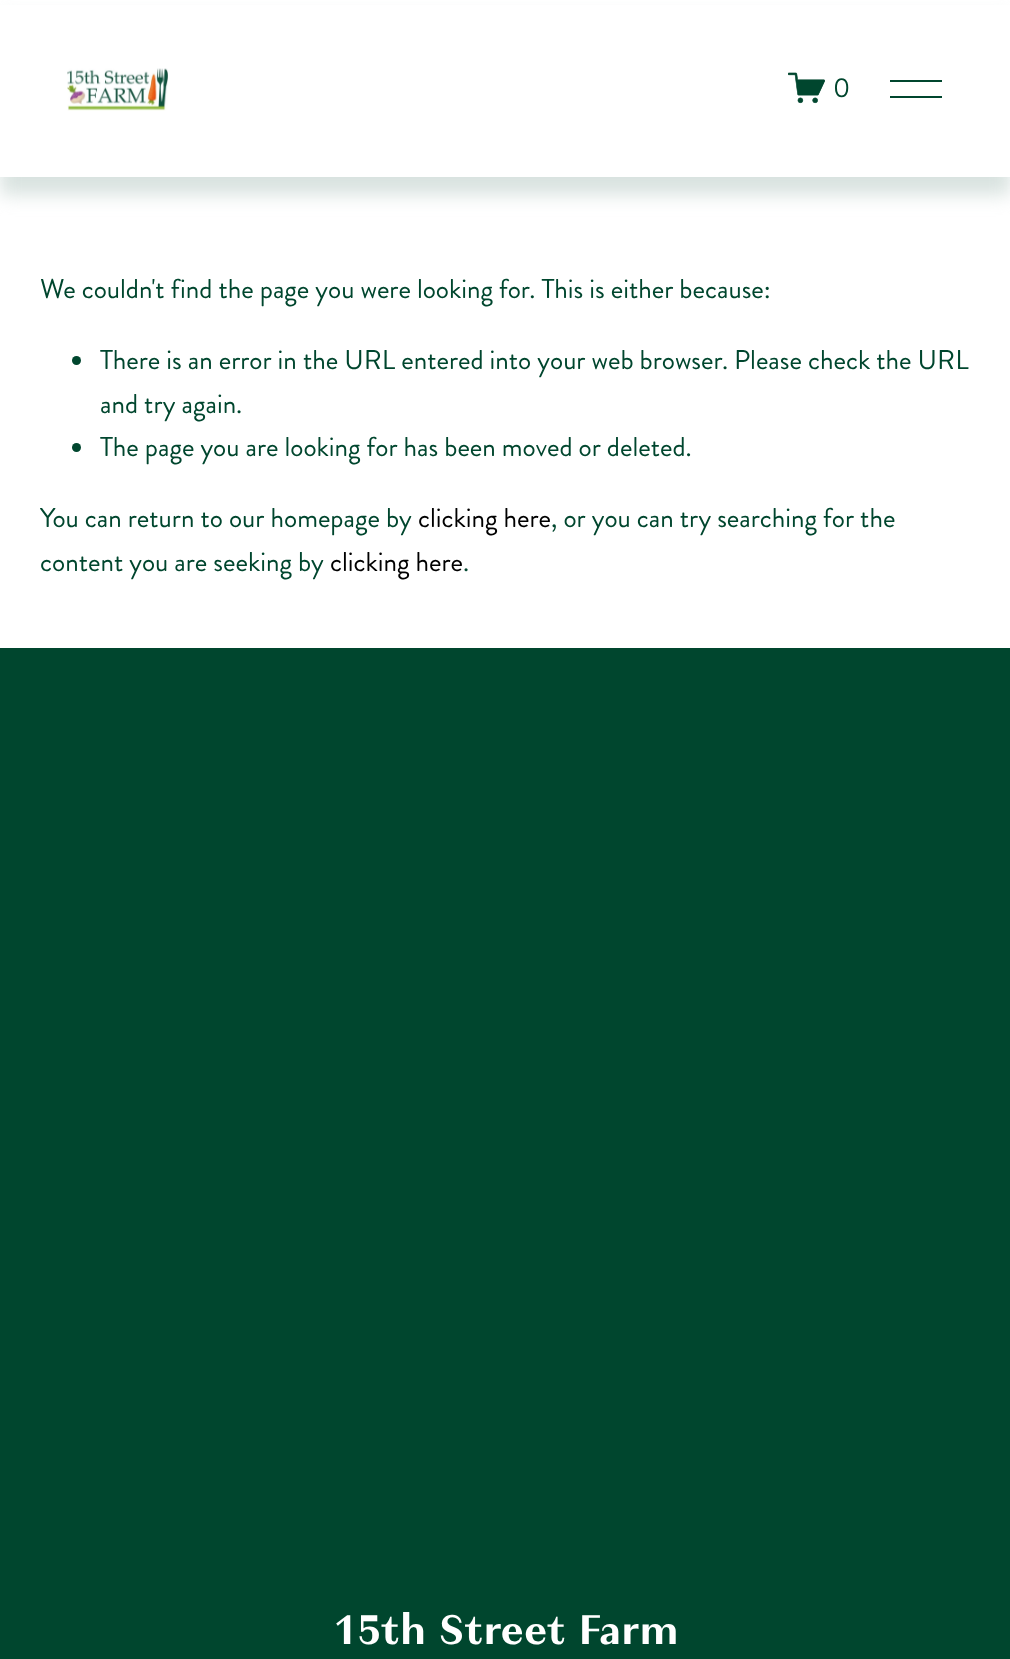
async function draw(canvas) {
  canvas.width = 1010
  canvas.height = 1659
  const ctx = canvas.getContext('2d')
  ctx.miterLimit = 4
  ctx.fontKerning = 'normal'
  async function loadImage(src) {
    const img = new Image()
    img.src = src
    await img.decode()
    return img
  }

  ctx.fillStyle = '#fff'
  ctx.fillRect(0, 0, 1010, 1659)
  ctx.fillStyle = '#d9e3e0'
  ctx.filter = 'blur(9px)'
  ctx.beginPath()
  ctx.rect(0, 18, 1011, 177)
  ctx.fill()
  ctx.filter = 'none'
  ctx.fillStyle = '#fff'
  ctx.fillRect(0, 5, 1010, 172)
  ctx.drawImage(await loadImage('image0.png'), 67, 68, 101, 43)
  ctx.drawImage(await loadImage('image1.png'), 788, 72, 37, 32)
  ctx.font = '27.25px Brandon Grotesque'
  ctx.fillStyle = '#00462e'
  ctx.fillText('0', 833, 97)
  ctx.fillRect(890, 80, 52, 2)
  ctx.fillRect(890, 96, 52, 2)
  ctx.fillText('We couldn\'t find the page you were looking for. This is either because:', 40, 298)
  ctx.beginPath()
  ctx.arc(76.5, 360.5, 4.5, 0, 2 * Math.PI)
  ctx.fill()
  ctx.fillText('There is an error in the URL entered into your web browser. Please check the URL', 100, 369)
  ctx.fillText('and try again.', 100, 413)
  ctx.beginPath()
  ctx.arc(76.5, 447.5, 4.5, 0, 2 * Math.PI)
  ctx.fill()
  ctx.fillText('The page you are looking for has been moved or deleted.', 100, 456)
  ctx.fillText('You can return to our homepage by', 40, 527)
  ctx.fillStyle = '#000'
  ctx.fillText('clicking here', 418, 527)
  ctx.fillStyle = '#00462e'
  ctx.fillText(', or you can try searching for the', 551, 527)
  ctx.fillText('content you are seeking by', 40, 571)
  ctx.fillStyle = '#000'
  ctx.fillText('clicking here', 330, 571)
  ctx.fillStyle = '#00462e'
  ctx.fillText('.', 463, 571)
  ctx.fillRect(0, 648, 1010, 1011)
  ctx.font = 'bold 43.5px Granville'
  ctx.fillStyle = '#fff'
  ctx.fillText('15th Street Farm', 333, 1644)
}

draw(document.querySelector('canvas'))
